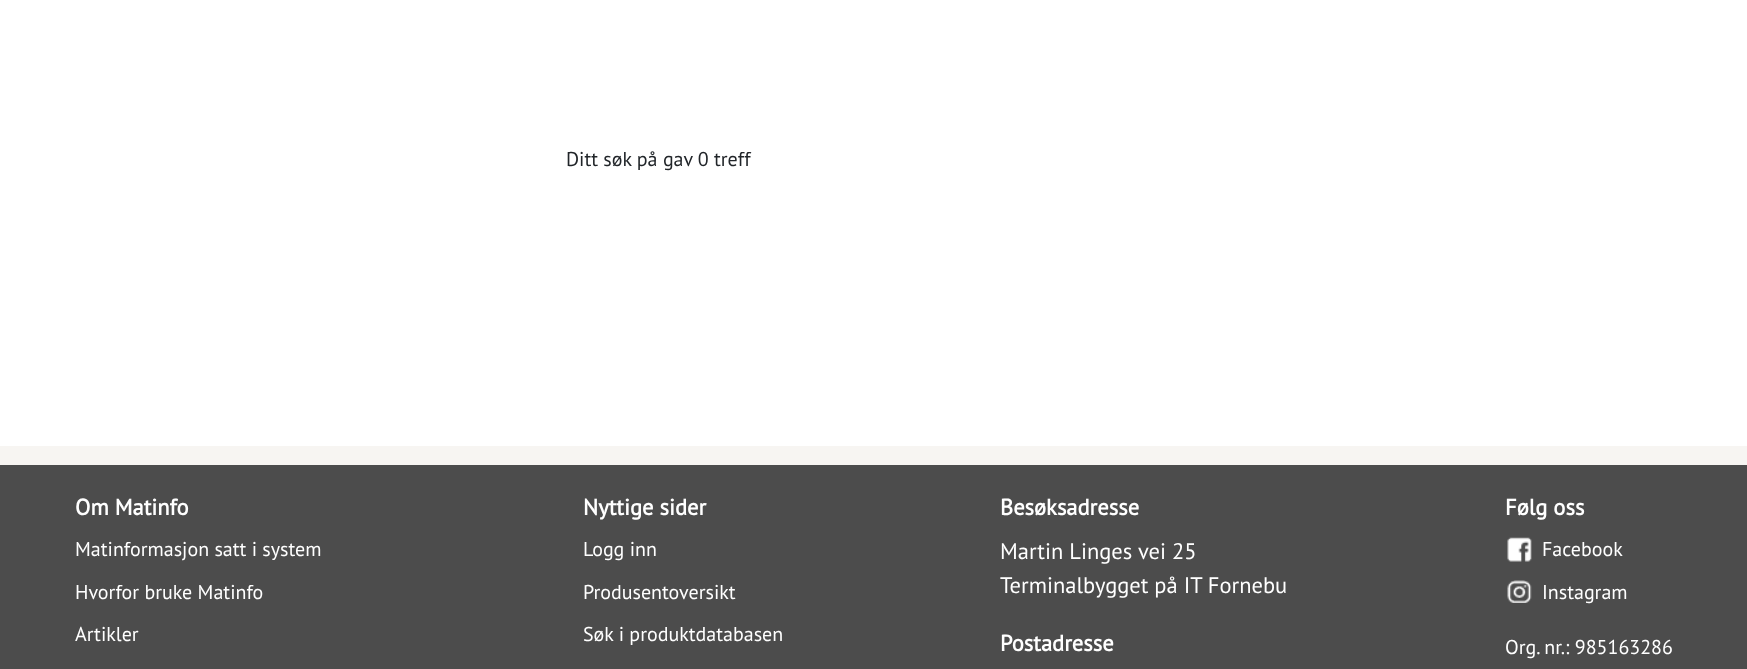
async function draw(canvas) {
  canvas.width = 1747
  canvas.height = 669
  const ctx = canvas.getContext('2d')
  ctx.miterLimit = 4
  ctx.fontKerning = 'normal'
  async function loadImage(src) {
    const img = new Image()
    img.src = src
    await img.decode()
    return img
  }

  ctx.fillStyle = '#fff'
  ctx.fillRect(0, 0, 1747, 669)
  ctx.fillStyle = '#f7f5f2'
  ctx.fillRect(0, 446, 1747, 19)
  ctx.font = '20px PT Sans'
  ctx.fillStyle = '#212529'
  ctx.fillText('Ditt søk på gav 0 treff', 566, 166)
  ctx.fillStyle = '#4c4c4c'
  ctx.fillRect(0, 465, 1747, 204)
  ctx.font = 'bold 22.5px PT Sans'
  ctx.fillStyle = '#fff'
  ctx.fillText('Om Matinfo', 75, 515)
  ctx.font = '20px PT Sans'
  ctx.fillText('Matinformasjon satt i system', 75, 556)
  ctx.fillText('Hvorfor bruke Matinfo', 75, 599)
  ctx.fillText('Artikler', 75, 641)
  ctx.font = 'bold 22.5px PT Sans'
  ctx.fillText('Nyttige sider', 583, 515)
  ctx.font = '20px PT Sans'
  ctx.fillText('Logg inn', 583, 556)
  ctx.fillText('Produsentoversikt', 583, 599)
  ctx.fillText('Søk i produktdatabasen', 583, 641)
  ctx.font = 'bold 22.5px PT Sans'
  ctx.fillText('Besøksadresse', 1000, 515)
  ctx.font = '22.5px PT Sans'
  ctx.fillText('Martin Linges vei 25', 1000, 559)
  ctx.fillText('Terminalbygget på IT Fornebu', 1000, 593)
  ctx.font = 'bold 22.5px PT Sans'
  ctx.fillText('Postadresse', 1000, 651)
  ctx.fillText('Følg oss', 1505, 515)
  ctx.drawImage(await loadImage('image0.png'), 1507, 537, 25, 25)
  ctx.font = '20px PT Sans'
  ctx.fillText('Facebook', 1542, 556)
  ctx.drawImage(await loadImage('image1.png'), 1507, 580, 25, 23)
  ctx.fillText('Instagram', 1542, 599)
  ctx.fillText('Org. nr.: 985163286', 1505, 654)
}

draw(document.querySelector('canvas'))
